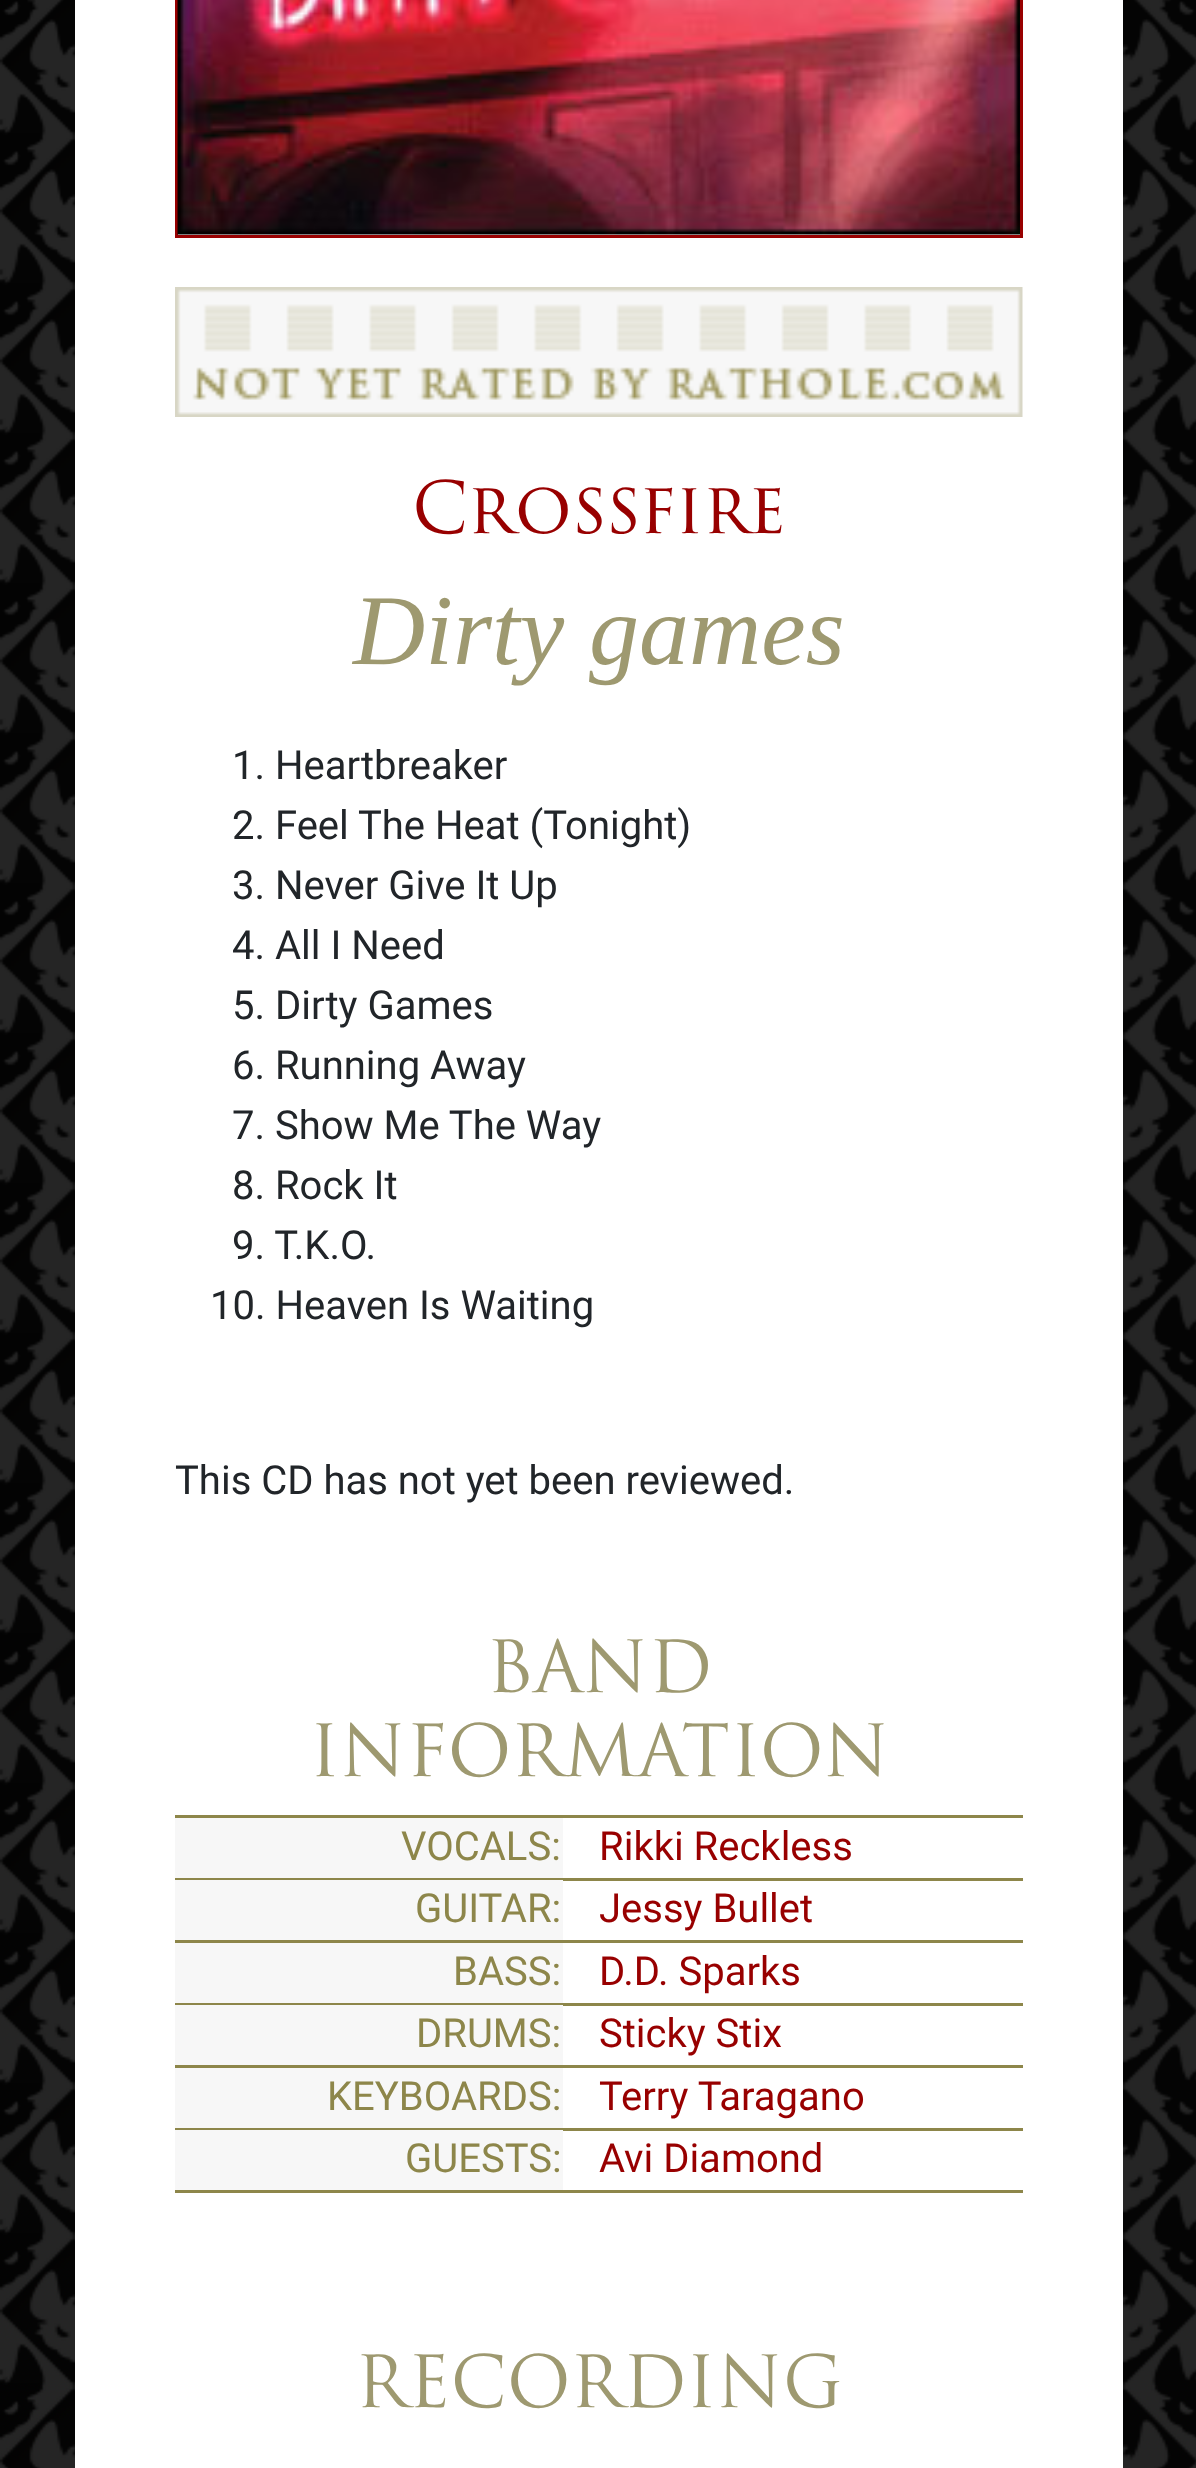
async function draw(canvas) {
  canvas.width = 1196
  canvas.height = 2468
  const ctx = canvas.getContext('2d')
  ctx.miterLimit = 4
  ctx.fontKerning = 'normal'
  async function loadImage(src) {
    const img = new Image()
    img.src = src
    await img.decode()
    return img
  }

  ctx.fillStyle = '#fff'
  ctx.fillRect(0, 0, 1196, 2468)
  ctx.drawImage(await loadImage('image0.png'), 0, 0, 1196, 2468)
  ctx.fillRect(75, 0, 1048, 2468)
  ctx.strokeStyle = '#980000'
  ctx.lineWidth = 3
  ctx.strokeRect(176.5, -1.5, 845, 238)
  ctx.drawImage(await loadImage('image1.png'), 177, 0, 843, 235)
  ctx.drawImage(await loadImage('image2.png'), 175, 287, 848, 130)
  ctx.font = '70px "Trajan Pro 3"'
  ctx.fillStyle = '#980000'
  ctx.fillText('Crossfire', 412, 533)
  ctx.font = 'italic 100px Liberation Serif'
  ctx.fillStyle = '#9e9970'
  ctx.fillText('Dirty games', 353, 664)
  ctx.font = '40px Roboto'
  ctx.fillStyle = '#212529'
  ctx.fillText('1. Heartbreaker', 232, 779)
  ctx.fillText('2. Feel The Heat (Tonight)', 232, 839)
  ctx.fillText('3. Never Give It Up', 232, 899)
  ctx.fillText('4. All I Need', 232, 959)
  ctx.fillText('5. Dirty Games', 232, 1019)
  ctx.fillText('6. Running Away', 232, 1079)
  ctx.fillText('7. Show Me The Way', 232, 1139)
  ctx.fillText('8. Rock It', 232, 1199)
  ctx.fillText('9. T.K.O.', 232, 1259)
  ctx.fillText('10. Heaven Is Waiting', 210, 1319)
  ctx.fillText('This CD has not yet been reviewed.', 175, 1494)
  ctx.font = '70px "Trajan Pro 3"'
  ctx.fillStyle = '#9e9970'
  ctx.fillText('BAND', 486, 1692)
  ctx.fillText('INFORMATION', 309, 1776)
  ctx.fillStyle = '#8d864a'
  ctx.fillRect(175, 1815, 848, 3)
  ctx.fillRect(175, 1878, 848, 3)
  ctx.fillStyle = '#f7f7f7'
  ctx.fillRect(175, 1818, 388, 60)
  ctx.font = '40px Roboto'
  ctx.fillStyle = '#8d864a'
  ctx.fillText('VOCALS:', 401, 1860)
  ctx.fillStyle = '#980000'
  ctx.fillText('Rikki Reckless', 599, 1860)
  ctx.fillStyle = '#8d864a'
  ctx.fillRect(175, 1940, 848, 3)
  ctx.fillStyle = '#f7f7f7'
  ctx.fillRect(175, 1880, 388, 60)
  ctx.fillStyle = '#8d864a'
  ctx.fillText('GUITAR:', 415, 1922)
  ctx.fillStyle = '#980000'
  ctx.fillText('Jessy Bullet', 599, 1922)
  ctx.fillStyle = '#8d864a'
  ctx.fillRect(175, 2003, 848, 3)
  ctx.fillStyle = '#f7f7f7'
  ctx.fillRect(175, 1943, 388, 60)
  ctx.fillStyle = '#8d864a'
  ctx.fillText('BASS:', 453, 1985)
  ctx.fillStyle = '#980000'
  ctx.fillText('D.D. Sparks', 599, 1985)
  ctx.fillStyle = '#8d864a'
  ctx.fillRect(175, 2065, 848, 3)
  ctx.fillStyle = '#f7f7f7'
  ctx.fillRect(175, 2005, 388, 60)
  ctx.fillStyle = '#8d864a'
  ctx.fillText('DRUMS:', 416, 2047)
  ctx.fillStyle = '#980000'
  ctx.fillText('Sticky Stix', 599, 2047)
  ctx.fillStyle = '#8d864a'
  ctx.fillRect(175, 2128, 848, 3)
  ctx.fillStyle = '#f7f7f7'
  ctx.fillRect(175, 2068, 388, 60)
  ctx.fillStyle = '#8d864a'
  ctx.fillText('KEYBOARDS:', 327, 2110)
  ctx.fillStyle = '#980000'
  ctx.fillText('Terry Taragano', 599, 2110)
  ctx.fillStyle = '#8d864a'
  ctx.fillRect(175, 2190, 848, 3)
  ctx.fillStyle = '#f7f7f7'
  ctx.fillRect(175, 2130, 388, 60)
  ctx.fillStyle = '#8d864a'
  ctx.fillText('GUESTS:', 405, 2172)
  ctx.fillStyle = '#980000'
  ctx.fillText('Avi Diamond', 599, 2172)
  ctx.font = '70px "Trajan Pro 3"'
  ctx.fillStyle = '#9e9970'
  ctx.fillText('RECORDING', 355, 2407)
}

draw(document.querySelector('canvas'))
